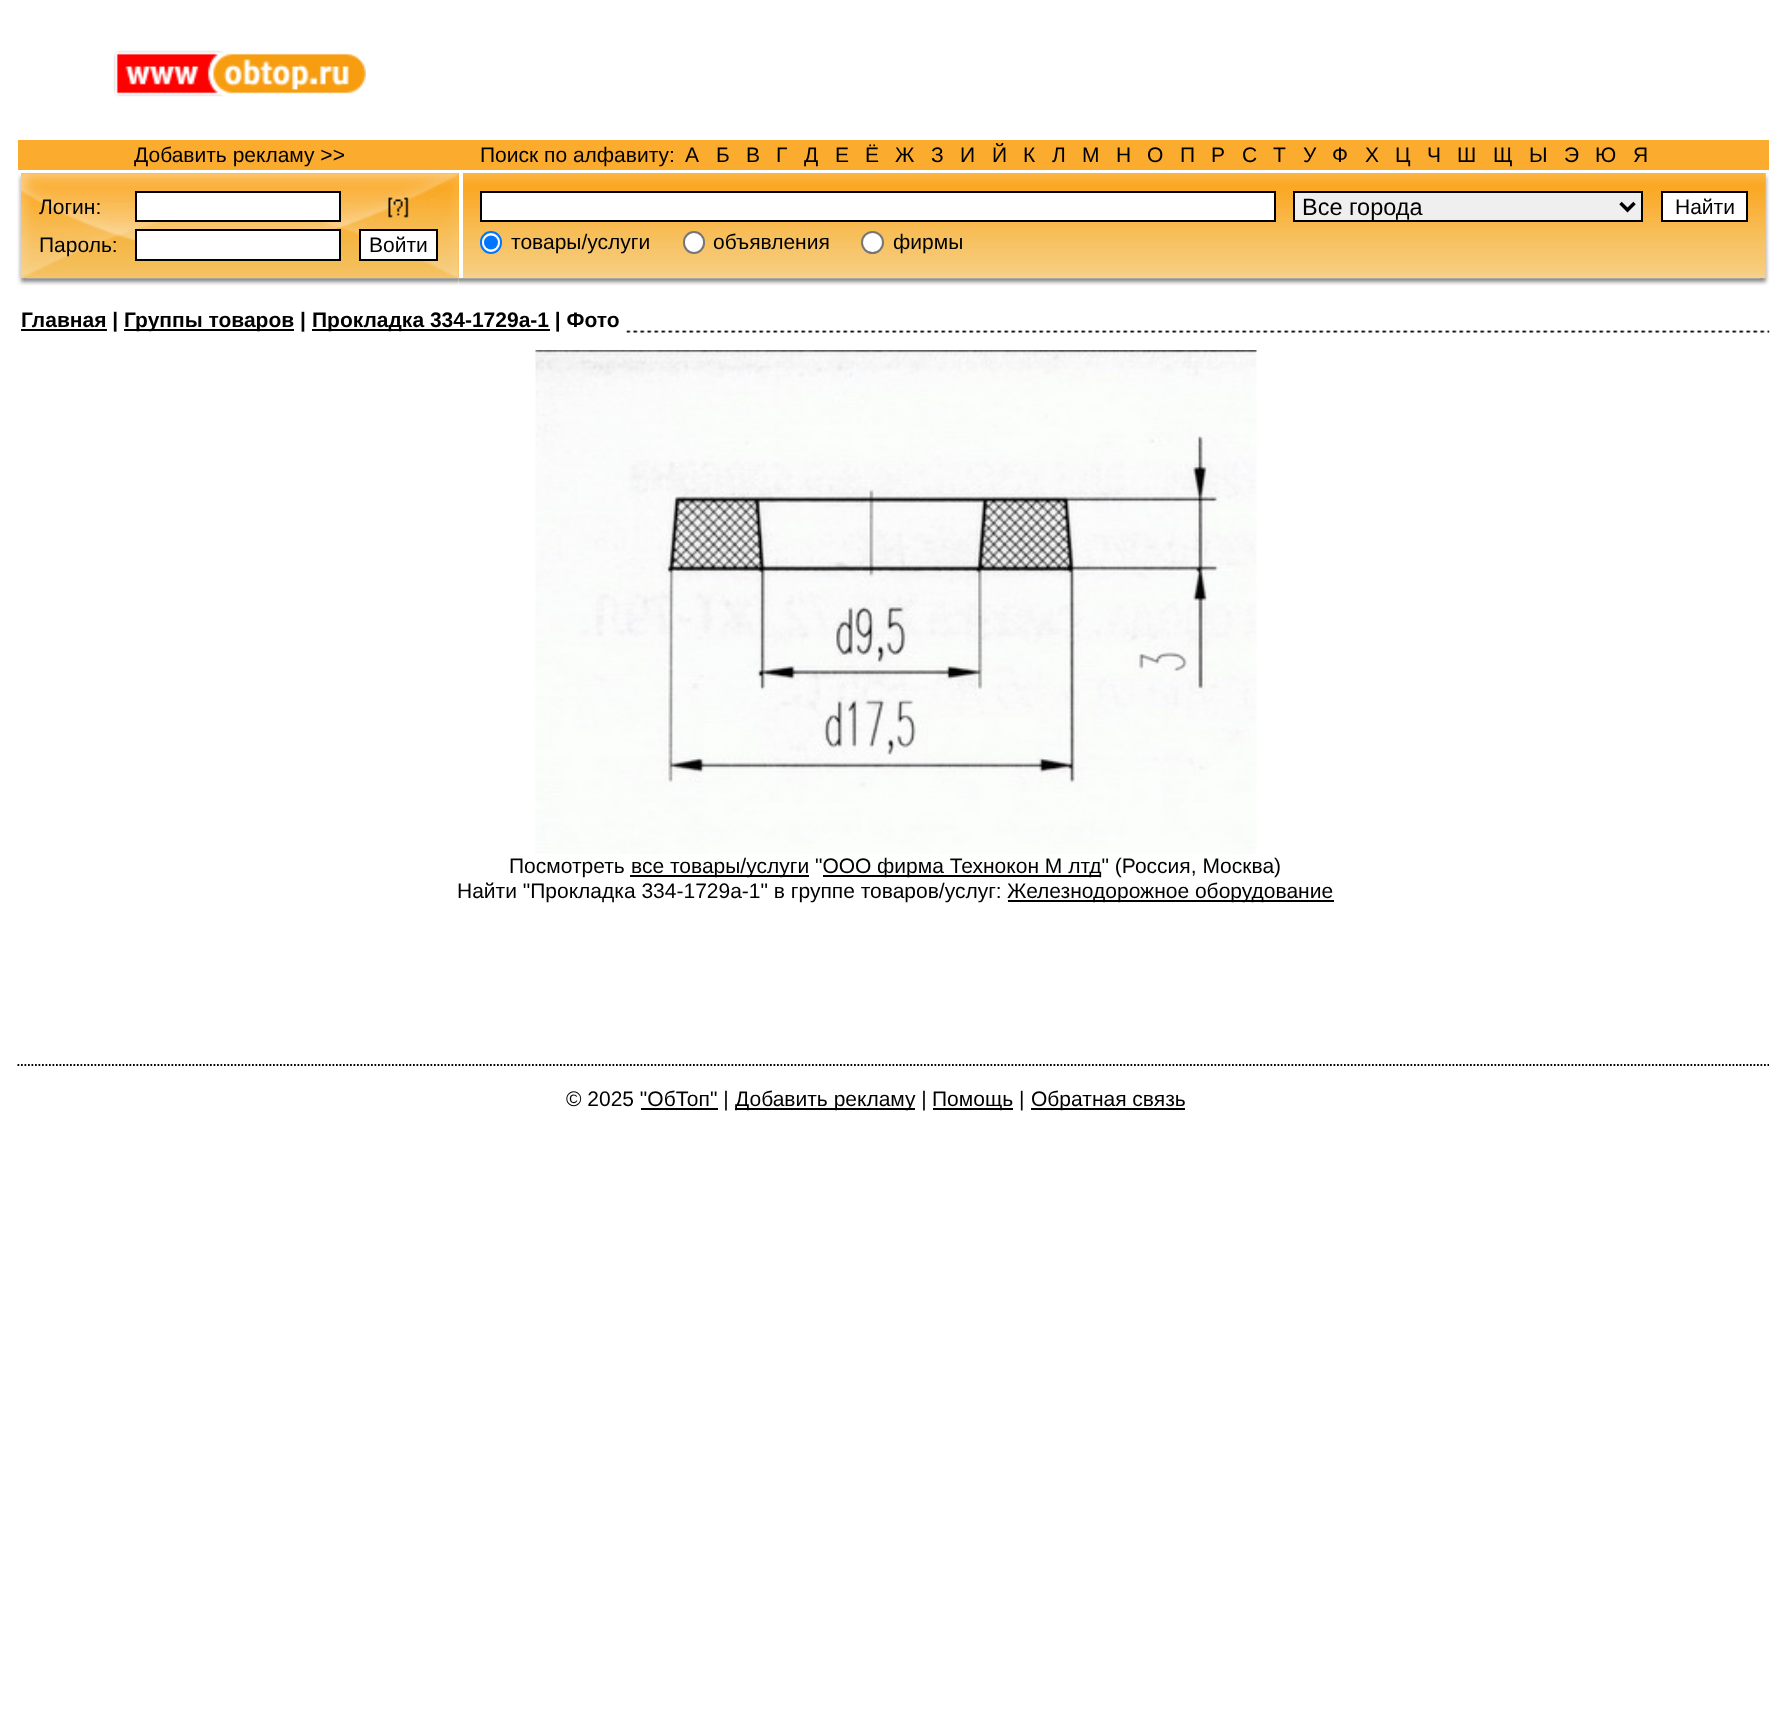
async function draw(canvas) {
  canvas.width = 1786
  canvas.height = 1727
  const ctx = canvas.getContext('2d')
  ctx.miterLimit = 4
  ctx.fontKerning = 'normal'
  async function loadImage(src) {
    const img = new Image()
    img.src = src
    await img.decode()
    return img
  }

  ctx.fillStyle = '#fff'
  ctx.fillRect(0, 0, 1786, 1727)
  ctx.drawImage(await loadImage('image0.png'), 113, 50, 253, 47)
  ctx.fillStyle = '#fbab2d'
  ctx.fillRect(18, 140, 1751, 30)
  ctx.font = '21px Liberation Sans'
  ctx.fillStyle = '#000'
  ctx.fillText('Добавить рекламу >>', 134, 162)
  ctx.fillText('Поиск по алфавиту:', 480, 162)
  ctx.fillText('А', 685, 162)
  ctx.fillText('Б', 716, 162)
  ctx.fillText('В', 746, 162)
  ctx.fillText('Г', 776, 162)
  ctx.fillText('Д', 804, 162)
  ctx.fillText('Е', 835, 162)
  ctx.fillText('Ё', 865, 162)
  ctx.fillText('Ж', 895, 162)
  ctx.fillText('З', 931, 162)
  ctx.fillText('И', 960, 162)
  ctx.fillText('Й', 992, 162)
  ctx.fillText('К', 1023, 162)
  ctx.fillText('Л', 1052, 162)
  ctx.fillText('М', 1082, 162)
  ctx.fillText('Н', 1116, 162)
  ctx.fillText('О', 1147, 162)
  ctx.fillText('П', 1180, 162)
  ctx.fillText('Р', 1211, 162)
  ctx.fillText('С', 1242, 162)
  ctx.fillText('Т', 1273, 162)
  ctx.fillText('У', 1303, 162)
  ctx.fillText('Ф', 1332, 162)
  ctx.fillText('Х', 1365, 162)
  ctx.fillText('Ц', 1395, 162)
  ctx.fillText('Ч', 1427, 162)
  ctx.fillText('Ш', 1457, 162)
  ctx.fillText('Щ', 1493, 162)
  ctx.fillText('Ы', 1529, 162)
  ctx.fillText('Э', 1564, 162)
  ctx.fillText('Ю', 1595, 162)
  ctx.fillText('Я', 1633, 162)
  ctx.drawImage(await loadImage('image1.png'), 17, 173, 4, 106)
  ctx.fillStyle = '#fbab2d'
  ctx.fillRect(21, 173, 438, 105)
  ctx.drawImage(await loadImage('image2.png'), 21, 173, 438, 106)
  ctx.fillStyle = '#000'
  ctx.fillText('Логин:', 39, 214)
  ctx.fillStyle = '#fff'
  ctx.beginPath()
  ctx.rect(136, 192, 204, 29)
  ctx.fill()
  ctx.strokeStyle = '#000'
  ctx.lineWidth = 2
  ctx.stroke()
  ctx.drawImage(await loadImage('image3.png'), 388, 197, 21, 21)
  ctx.fillStyle = '#000'
  ctx.fillText('Пароль:', 39, 252)
  ctx.fillStyle = '#fff'
  ctx.beginPath()
  ctx.rect(136, 230, 204, 30)
  ctx.fill()
  ctx.stroke()
  ctx.beginPath()
  ctx.rect(360, 230, 77, 30)
  ctx.fill()
  ctx.stroke()
  ctx.fillStyle = '#000'
  ctx.fillText('Войти', 369, 252)
  ctx.fillStyle = '#fbab2d'
  ctx.fillRect(463, 173, 1303, 105)
  ctx.drawImage(await loadImage('image4.png'), 458, 173, 1308, 106)
  ctx.fillStyle = '#fff'
  ctx.fillRect(459, 173, 4, 105)
  ctx.beginPath()
  ctx.rect(481, 192, 794, 29)
  ctx.fill()
  ctx.stroke()
  ctx.fillStyle = '#efefef'
  ctx.beginPath()
  ctx.rect(1294, 192, 348, 29)
  ctx.fill()
  ctx.stroke()
  ctx.beginPath()
  ctx.moveTo(1620.5, 203)
  ctx.lineTo(1627.5, 210)
  ctx.lineTo(1634.5, 203)
  ctx.lineWidth = 3.5
  ctx.stroke()
  ctx.font = '23.5px Liberation Sans'
  ctx.fillStyle = '#000'
  ctx.fillText('Все города', 1302, 215)
  ctx.fillStyle = '#fff'
  ctx.beginPath()
  ctx.rect(1662, 192, 85, 29)
  ctx.fill()
  ctx.lineWidth = 2
  ctx.stroke()
  ctx.font = '21px Liberation Sans'
  ctx.fillStyle = '#000'
  ctx.fillText('Найти', 1675, 214)
  ctx.fillStyle = '#fff'
  ctx.beginPath()
  ctx.roundRect(481, 232, 20, 21, 10)
  ctx.fill()
  ctx.strokeStyle = '#0075ff'
  ctx.stroke()
  ctx.fillStyle = '#0075ff'
  ctx.beginPath()
  ctx.arc(491, 242.5, 7, 0, 2 * Math.PI)
  ctx.fill()
  ctx.fillStyle = '#000'
  ctx.fillText('товары/услуги', 511, 249)
  ctx.fillStyle = '#fff'
  ctx.beginPath()
  ctx.roundRect(684, 232, 20, 21, 10)
  ctx.fill()
  ctx.strokeStyle = '#767676'
  ctx.stroke()
  ctx.fillStyle = '#000'
  ctx.fillText('объявления', 713, 249)
  ctx.fillStyle = '#fff'
  ctx.beginPath()
  ctx.arc(872.5, 242.5, 10.5, 0, 2 * Math.PI)
  ctx.fill()
  ctx.stroke()
  ctx.fillStyle = '#000'
  ctx.fillText('фирмы', 893, 249)
  ctx.drawImage(await loadImage('image5.png'), 1765, 173, 5, 106)
  ctx.drawImage(await loadImage('image6.png'), 17, 278, 4, 7)
  ctx.drawImage(await loadImage('image7.png'), 21, 278, 438, 8)
  ctx.drawImage(await loadImage('image8.png'), 21, 278, 6, 7)
  ctx.drawImage(await loadImage('image9.png'), 458, 278, 1308, 8)
  ctx.drawImage(await loadImage('image11.png'), 1765, 278, 4, 7)
  ctx.drawImage(await loadImage('image10.png'), 1760, 278, 6, 6)
  ctx.fillRect(21, 329, 86, 2)
  ctx.font = 'bold 21px Liberation Sans'
  ctx.fillText('Главная |', 21, 327)
  ctx.fillRect(124, 329, 170, 2)
  ctx.fillText('Группы товаров |', 124, 327)
  ctx.fillRect(312, 329, 238, 2)
  ctx.fillText('Прокладка 334-1729а-1 | Фото', 312, 327)
  ctx.drawImage(await loadImage('image12.png'), 626, 330, 1144, 3)
  ctx.drawImage(await loadImage('image13.png'), 535, 350, 722, 504)
  ctx.font = '21px Liberation Sans'
  ctx.fillText('Посмотреть', 509, 873)
  ctx.fillRect(630, 875, 179, 2)
  ctx.fillText('все товары/услуги "ООО', 631, 873)
  ctx.fillRect(823, 875, 278, 2)
  ctx.fillText('фирма Технокон М лтд" (Россия, Москва)', 877, 873)
  ctx.fillText('Найти "Прокладка 334-1729а-1" в группе товаров/услуг:', 457, 898)
  ctx.fillRect(1008, 900, 326, 2)
  ctx.fillText('Железнодорожное оборудование', 1007, 898)
  ctx.beginPath()
  ctx.moveTo(17.5, 1065)
  ctx.lineTo(1769, 1065)
  ctx.strokeStyle = '#000'
  ctx.lineWidth = 1.8
  ctx.setLineDash([1.75, 1.75])
  ctx.stroke()
  ctx.fillText('© 2025 "ОбТоп" |', 566, 1106)
  ctx.fillRect(735, 1108, 180, 2)
  ctx.fillText('Добавить рекламу |', 735, 1106)
  ctx.fillRect(933, 1108, 80, 2)
  ctx.fillText('Помощь |', 932, 1106)
  ctx.fillRect(1031, 1108, 154, 2)
  ctx.fillText('Обратная связь', 1031, 1106)
  ctx.fillRect(641, 1108, 77, 2)
}

draw(document.querySelector('canvas'))
